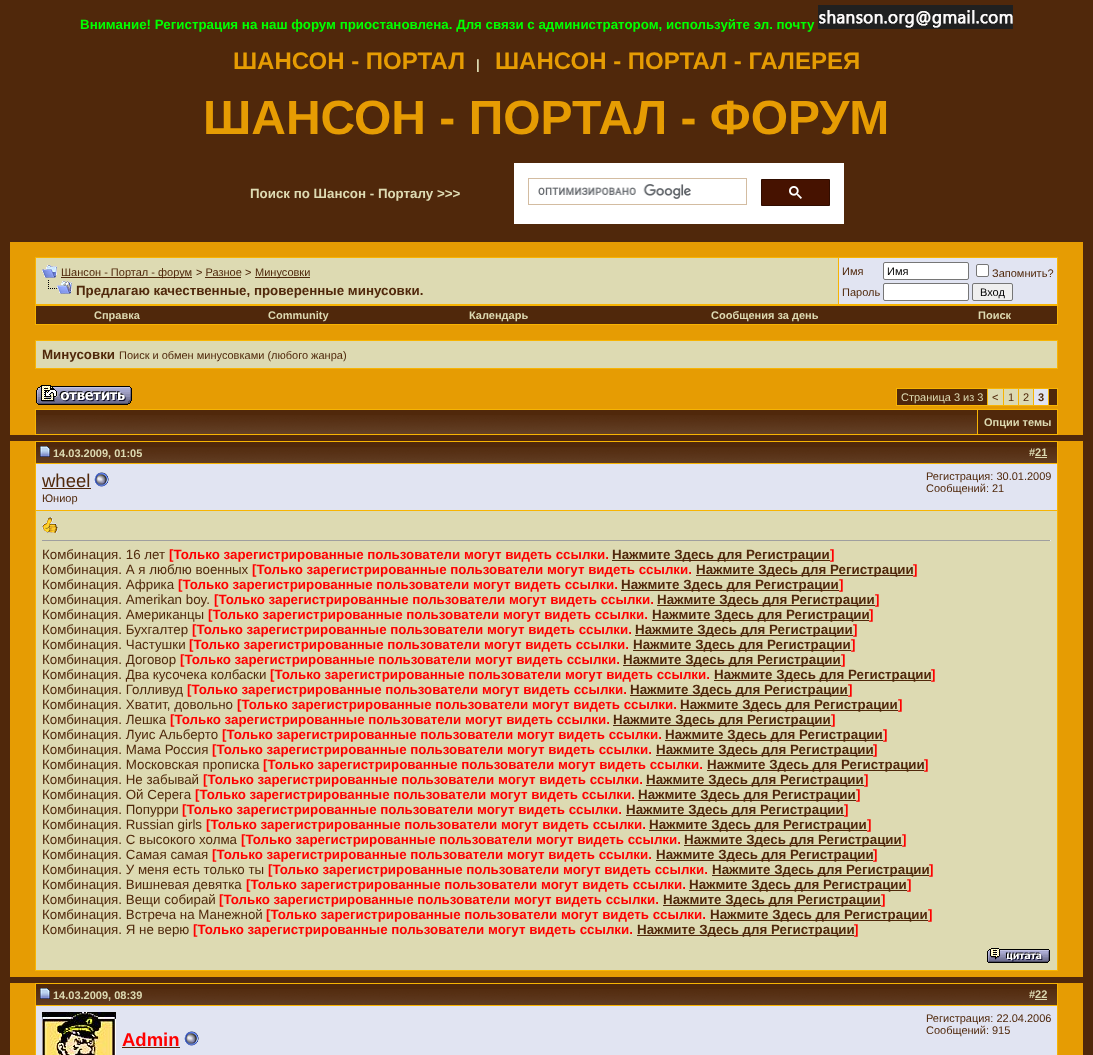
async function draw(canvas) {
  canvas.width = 1093
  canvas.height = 1055
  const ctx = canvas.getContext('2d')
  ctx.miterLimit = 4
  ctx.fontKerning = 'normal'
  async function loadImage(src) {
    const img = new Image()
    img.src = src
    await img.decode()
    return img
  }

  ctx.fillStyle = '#50280b'
  ctx.fillRect(0, 0, 1093, 1055)
  ctx.font = 'bold 13.33px Liberation Sans'
  ctx.fillStyle = '#0f0'
  ctx.fillText('Внимание! Регистрация на наш форум приостановлена. Для связи с администратором, используйте эл. почту', 80, 29)
  ctx.drawImage(await loadImage('image0.png'), 818, 5, 195, 24)
  ctx.font = 'bold 24px Liberation Sans'
  ctx.fillStyle = '#e69c03'
  ctx.fillText('ШАНСОН - ПОРТАЛ', 233, 69)
  ctx.font = 'bold 13.33px Liberation Sans'
  ctx.fillStyle = '#dddab2'
  ctx.fillText('|', 476, 69)
  ctx.font = 'bold 24px Liberation Sans'
  ctx.fillStyle = '#e69c03'
  ctx.fillText('ШАНСОН - ПОРТАЛ - ГАЛЕРЕЯ', 495, 69)
  ctx.font = 'bold 48px Liberation Sans'
  ctx.fillText('ШАНСОН - ПОРТАЛ - ФОРУМ', 203, 134)
  ctx.font = 'bold 13.33px Liberation Sans'
  ctx.fillStyle = '#dddab2'
  ctx.fillText('Поиск по Шансон - Порталу >>>', 250, 198)
  ctx.fillStyle = '#fff'
  ctx.fillRect(514, 163, 330, 61)
  ctx.strokeStyle = '#d3bca1'
  ctx.strokeRect(528.5, 178.5, 218, 26)
  ctx.drawImage(await loadImage('image1.png'), 538, 184, 153, 15)
  ctx.fillStyle = '#461200'
  ctx.beginPath()
  ctx.rect(761.5, 179.5, 68, 26)
  ctx.fill()
  ctx.strokeStyle = '#300d00'
  ctx.stroke()
  ctx.drawImage(await loadImage('image2.png'), 789, 186, 13, 13)
  ctx.fillStyle = '#e69c03'
  ctx.fillRect(10, 242, 1073, 193)
  ctx.fillStyle = '#f7b403'
  ctx.fillRect(35, 257, 1023, 68)
  ctx.fillStyle = '#dddab2'
  ctx.fillRect(36, 258, 802, 46)
  ctx.drawImage(await loadImage('image3.png'), 42, 265, 15, 13)
  ctx.fillStyle = '#50280b'
  ctx.fillRect(61, 277, 131, 1)
  ctx.font = '11px Liberation Sans'
  ctx.fillText('Шансон - Портал - форум', 61, 276)
  ctx.fillText('> Разное', 196, 276)
  ctx.fillRect(205, 277, 36, 1)
  ctx.fillText('>', 245, 276)
  ctx.fillRect(255, 277, 55, 1)
  ctx.fillText('Минусовки', 255, 276)
  ctx.drawImage(await loadImage('image4.png'), 48, 280, 24, 14)
  ctx.font = 'bold 13.33px Liberation Sans'
  ctx.fillText('Предлагаю качественные, проверенные минусовки.', 76, 295)
  ctx.fillStyle = '#e1e4f2'
  ctx.fillRect(839, 258, 218, 46)
  ctx.font = '11px Liberation Sans'
  ctx.fillStyle = '#50280b'
  ctx.fillText('Имя', 842, 275)
  ctx.fillStyle = '#fff'
  ctx.beginPath()
  ctx.roundRect(883.5, 262.5, 85, 17, 1.5)
  ctx.fill()
  ctx.strokeStyle = '#767676'
  ctx.stroke()
  ctx.fillStyle = '#000'
  ctx.fillText('Имя', 887, 275)
  ctx.fillStyle = '#fff'
  ctx.beginPath()
  ctx.roundRect(976.5, 264.5, 12, 12, 1.5)
  ctx.fill()
  ctx.stroke()
  ctx.fillStyle = '#50280b'
  ctx.fillText('Запомнить?', 992, 277)
  ctx.fillText('Пароль', 842, 296)
  ctx.fillStyle = '#fff'
  ctx.beginPath()
  ctx.roundRect(883.5, 283.5, 85, 17, 1.5)
  ctx.fill()
  ctx.stroke()
  ctx.fillStyle = '#efefef'
  ctx.beginPath()
  ctx.roundRect(972.5, 283.5, 40, 17, 1.5)
  ctx.fill()
  ctx.stroke()
  ctx.fillStyle = '#000'
  ctx.fillText('Вход', 980, 296)
  ctx.fillStyle = '#50280b'
  ctx.fillRect(36, 306, 1021, 18)
  ctx.font = 'bold 11px Liberation Sans'
  ctx.fillStyle = '#dddab2'
  ctx.fillText('Справка', 94, 319)
  ctx.fillText('Community', 268, 319)
  ctx.fillText('Календарь', 469, 319)
  ctx.fillText('Сообщения за день', 711, 319)
  ctx.fillText('Поиск', 978, 319)
  ctx.fillStyle = '#f7b403'
  ctx.fillRect(35, 340, 1023, 29)
  ctx.fillStyle = '#dddab2'
  ctx.fillRect(36, 341, 1021, 27)
  ctx.font = 'bold 13.33px Liberation Sans'
  ctx.fillStyle = '#50280b'
  ctx.fillText('Минусовки', 42, 359)
  ctx.font = '11px Liberation Sans'
  ctx.fillText('Поиск и обмен минусовками (любого жанра)', 119, 359)
  ctx.drawImage(await loadImage('image5.png'), 36, 385, 96, 20)
  ctx.fillStyle = '#f7b403'
  ctx.fillRect(896, 388, 162, 18)
  ctx.fillStyle = '#50280b'
  ctx.fillRect(897, 389, 90, 16)
  ctx.fillStyle = '#dddab2'
  ctx.fillText('Страница 3 из 3', 901, 401)
  ctx.fillRect(988, 389, 15, 16)
  ctx.fillStyle = '#50280b'
  ctx.fillText('<', 992, 401)
  ctx.fillStyle = '#dddab2'
  ctx.fillRect(1004, 389, 14, 16)
  ctx.fillStyle = '#50280b'
  ctx.fillText('1', 1008, 401)
  ctx.fillStyle = '#dddab2'
  ctx.fillRect(1019, 389, 14, 16)
  ctx.fillStyle = '#50280b'
  ctx.fillText('2', 1023, 401)
  ctx.fillStyle = '#e1e4f2'
  ctx.fillRect(1034, 389, 14, 16)
  ctx.font = 'bold 11px Liberation Sans'
  ctx.fillStyle = '#50280b'
  ctx.fillText('3', 1038, 401)
  ctx.fillRect(1049, 389, 8, 16)
  ctx.fillStyle = '#f7b403'
  ctx.fillRect(35, 409, 1023, 26)
  ctx.fillStyle = '#50280b'
  ctx.fillRect(36, 410, 941, 5)
  ctx.drawImage(await loadImage('image6.png'), 36, 415, 941, 19)
  ctx.fillRect(978, 410, 79, 24)
  ctx.fillStyle = '#dddab2'
  ctx.fillText('Опции темы', 984, 426)
  ctx.fillStyle = '#e69c03'
  ctx.fillRect(10, 441, 1073, 536)
  ctx.fillStyle = '#f7b403'
  ctx.fillRect(35, 441, 1023, 530)
  ctx.fillStyle = '#50280b'
  ctx.fillRect(36, 442, 1021, 5)
  ctx.drawImage(await loadImage('image7.png'), 36, 447, 1021, 16)
  ctx.drawImage(await loadImage('image8.png'), 40, 446, 10, 11)
  ctx.fillStyle = '#dddab2'
  ctx.fillText('14.03.2009, 01:05', 53, 457)
  ctx.fillText('#21', 1029, 456)
  ctx.fillRect(1035, 457, 12, 1)
  ctx.fillStyle = '#e1e4f2'
  ctx.fillRect(36, 464, 1021, 46)
  ctx.font = '18.5px Liberation Sans'
  ctx.fillStyle = '#50280b'
  ctx.fillText('wheel', 42, 487)
  ctx.fillRect(42, 488, 49, 1)
  ctx.drawImage(await loadImage('image9.png'), 94, 472, 15, 15)
  ctx.font = '11px Liberation Sans'
  ctx.fillText('Юниор', 42, 502)
  ctx.fillText('Регистрация: 30.01.2009', 926, 480)
  ctx.fillText('Сообщений: 21', 926, 492)
  ctx.fillStyle = '#dddab2'
  ctx.fillRect(36, 511, 1021, 459)
  ctx.drawImage(await loadImage('image10.png'), 42, 517, 16, 16)
  ctx.fillStyle = '#9f9f9f'
  ctx.fillRect(42, 540, 1009, 1)
  ctx.fillStyle = '#eee'
  ctx.fillRect(1050, 540, 1, 1)
  ctx.font = '13.33px Liberation Sans'
  ctx.fillStyle = '#50280b'
  ctx.fillText('Комбинация. 16 лет', 42, 559)
  ctx.font = 'bold 13.33px Liberation Sans'
  ctx.fillStyle = '#f00'
  ctx.fillText('[Только зарегистрированные пользователи могут видеть ссылки.', 169, 559)
  ctx.fillStyle = '#50280b'
  ctx.fillRect(612, 560, 218, 1)
  ctx.fillText('Нажмите Здесь для Регистрации', 612, 559)
  ctx.fillStyle = '#f00'
  ctx.fillText(']', 830, 559)
  ctx.font = '13.33px Liberation Sans'
  ctx.fillStyle = '#50280b'
  ctx.fillText('Комбинация. А я люблю военных', 42, 574)
  ctx.font = 'bold 13.33px Liberation Sans'
  ctx.fillStyle = '#f00'
  ctx.fillText('[Только зарегистрированные пользователи могут видеть ссылки.', 252, 574)
  ctx.fillStyle = '#50280b'
  ctx.fillRect(696, 575, 217, 1)
  ctx.fillText('Нажмите Здесь для Регистрации', 696, 574)
  ctx.fillStyle = '#f00'
  ctx.fillText(']', 913, 574)
  ctx.font = '13.33px Liberation Sans'
  ctx.fillStyle = '#50280b'
  ctx.fillText('Комбинация. Африка', 42, 589)
  ctx.font = 'bold 13.33px Liberation Sans'
  ctx.fillStyle = '#f00'
  ctx.fillText('[Только зарегистрированные пользователи могут видеть ссылки.', 178, 589)
  ctx.fillStyle = '#50280b'
  ctx.fillRect(621, 590, 218, 1)
  ctx.fillText('Нажмите Здесь для Регистрации', 621, 589)
  ctx.fillStyle = '#f00'
  ctx.fillText(']', 839, 589)
  ctx.font = '13.33px Liberation Sans'
  ctx.fillStyle = '#50280b'
  ctx.fillText('Комбинация. Amerikan boy.', 42, 604)
  ctx.font = 'bold 13.33px Liberation Sans'
  ctx.fillStyle = '#f00'
  ctx.fillText('[Только зарегистрированные пользователи могут видеть ссылки.', 214, 604)
  ctx.fillStyle = '#50280b'
  ctx.fillRect(657, 605, 218, 1)
  ctx.fillText('Нажмите Здесь для Регистрации', 657, 604)
  ctx.fillStyle = '#f00'
  ctx.fillText(']', 875, 604)
  ctx.font = '13.33px Liberation Sans'
  ctx.fillStyle = '#50280b'
  ctx.fillText('Комбинация. Американцы', 42, 619)
  ctx.font = 'bold 13.33px Liberation Sans'
  ctx.fillStyle = '#f00'
  ctx.fillText('[Только зарегистрированные пользователи могут видеть ссылки.', 208, 619)
  ctx.fillStyle = '#50280b'
  ctx.fillRect(652, 620, 217, 1)
  ctx.fillText('Нажмите Здесь для Регистрации', 652, 619)
  ctx.fillStyle = '#f00'
  ctx.fillText(']', 869, 619)
  ctx.font = '13.33px Liberation Sans'
  ctx.fillStyle = '#50280b'
  ctx.fillText('Комбинация. Бухгалтер', 42, 634)
  ctx.font = 'bold 13.33px Liberation Sans'
  ctx.fillStyle = '#f00'
  ctx.fillText('[Только зарегистрированные пользователи могут видеть ссылки.', 192, 634)
  ctx.fillStyle = '#50280b'
  ctx.fillRect(635, 635, 218, 1)
  ctx.fillText('Нажмите Здесь для Регистрации', 635, 634)
  ctx.fillStyle = '#f00'
  ctx.fillText(']', 853, 634)
  ctx.font = '13.33px Liberation Sans'
  ctx.fillStyle = '#50280b'
  ctx.fillText('Комбинация. Частушки', 42, 649)
  ctx.font = 'bold 13.33px Liberation Sans'
  ctx.fillStyle = '#f00'
  ctx.fillText('[Только зарегистрированные пользователи могут видеть ссылки.', 189, 649)
  ctx.fillStyle = '#50280b'
  ctx.fillRect(633, 650, 218, 1)
  ctx.fillText('Нажмите Здесь для Регистрации', 633, 649)
  ctx.fillStyle = '#f00'
  ctx.fillText(']', 851, 649)
  ctx.font = '13.33px Liberation Sans'
  ctx.fillStyle = '#50280b'
  ctx.fillText('Комбинация. Договор', 42, 664)
  ctx.font = 'bold 13.33px Liberation Sans'
  ctx.fillStyle = '#f00'
  ctx.fillText('[Только зарегистрированные пользователи могут видеть ссылки.', 180, 664)
  ctx.fillStyle = '#50280b'
  ctx.fillRect(623, 665, 218, 1)
  ctx.fillText('Нажмите Здесь для Регистрации', 623, 664)
  ctx.fillStyle = '#f00'
  ctx.fillText(']', 841, 664)
  ctx.font = '13.33px Liberation Sans'
  ctx.fillStyle = '#50280b'
  ctx.fillText('Комбинация. Два кусочека колбаски', 42, 679)
  ctx.font = 'bold 13.33px Liberation Sans'
  ctx.fillStyle = '#f00'
  ctx.fillText('[Только зарегистрированные пользователи могут видеть ссылки.', 270, 679)
  ctx.fillStyle = '#50280b'
  ctx.fillRect(714, 680, 217, 1)
  ctx.fillText('Нажмите Здесь для Регистрации', 714, 679)
  ctx.fillStyle = '#f00'
  ctx.fillText(']', 931, 679)
  ctx.font = '13.33px Liberation Sans'
  ctx.fillStyle = '#50280b'
  ctx.fillText('Комбинация. Голливуд', 42, 694)
  ctx.font = 'bold 13.33px Liberation Sans'
  ctx.fillStyle = '#f00'
  ctx.fillText('[Только зарегистрированные пользователи могут видеть ссылки.', 187, 694)
  ctx.fillStyle = '#50280b'
  ctx.fillRect(630, 695, 218, 1)
  ctx.fillText('Нажмите Здесь для Регистрации', 630, 694)
  ctx.fillStyle = '#f00'
  ctx.fillText(']', 848, 694)
  ctx.font = '13.33px Liberation Sans'
  ctx.fillStyle = '#50280b'
  ctx.fillText('Комбинация. Хватит, довольно', 42, 709)
  ctx.font = 'bold 13.33px Liberation Sans'
  ctx.fillStyle = '#f00'
  ctx.fillText('[Только зарегистрированные пользователи могут видеть ссылки.', 237, 709)
  ctx.fillStyle = '#50280b'
  ctx.fillRect(680, 710, 218, 1)
  ctx.fillText('Нажмите Здесь для Регистрации', 680, 709)
  ctx.fillStyle = '#f00'
  ctx.fillText(']', 898, 709)
  ctx.font = '13.33px Liberation Sans'
  ctx.fillStyle = '#50280b'
  ctx.fillText('Комбинация. Лешка', 42, 724)
  ctx.font = 'bold 13.33px Liberation Sans'
  ctx.fillStyle = '#f00'
  ctx.fillText('[Только зарегистрированные пользователи могут видеть ссылки.', 170, 724)
  ctx.fillStyle = '#50280b'
  ctx.fillRect(613, 725, 218, 1)
  ctx.fillText('Нажмите Здесь для Регистрации', 613, 724)
  ctx.fillStyle = '#f00'
  ctx.fillText(']', 831, 724)
  ctx.font = '13.33px Liberation Sans'
  ctx.fillStyle = '#50280b'
  ctx.fillText('Комбинация. Луис Альберто', 42, 739)
  ctx.font = 'bold 13.33px Liberation Sans'
  ctx.fillStyle = '#f00'
  ctx.fillText('[Только зарегистрированные пользователи могут видеть ссылки.', 222, 739)
  ctx.fillStyle = '#50280b'
  ctx.fillRect(665, 740, 218, 1)
  ctx.fillText('Нажмите Здесь для Регистрации', 665, 739)
  ctx.fillStyle = '#f00'
  ctx.fillText(']', 883, 739)
  ctx.font = '13.33px Liberation Sans'
  ctx.fillStyle = '#50280b'
  ctx.fillText('Комбинация. Мама Россия', 42, 754)
  ctx.font = 'bold 13.33px Liberation Sans'
  ctx.fillStyle = '#f00'
  ctx.fillText('[Только зарегистрированные пользователи могут видеть ссылки.', 212, 754)
  ctx.fillStyle = '#50280b'
  ctx.fillRect(656, 755, 217, 1)
  ctx.fillText('Нажмите Здесь для Регистрации', 656, 754)
  ctx.fillStyle = '#f00'
  ctx.fillText(']', 873, 754)
  ctx.font = '13.33px Liberation Sans'
  ctx.fillStyle = '#50280b'
  ctx.fillText('Комбинация. Московская прописка', 42, 769)
  ctx.font = 'bold 13.33px Liberation Sans'
  ctx.fillStyle = '#f00'
  ctx.fillText('[Только зарегистрированные пользователи могут видеть ссылки.', 263, 769)
  ctx.fillStyle = '#50280b'
  ctx.fillRect(707, 770, 217, 1)
  ctx.fillText('Нажмите Здесь для Регистрации', 707, 769)
  ctx.fillStyle = '#f00'
  ctx.fillText(']', 924, 769)
  ctx.font = '13.33px Liberation Sans'
  ctx.fillStyle = '#50280b'
  ctx.fillText('Комбинация. Не забывай', 42, 784)
  ctx.font = 'bold 13.33px Liberation Sans'
  ctx.fillStyle = '#f00'
  ctx.fillText('[Только зарегистрированные пользователи могут видеть ссылки.', 203, 784)
  ctx.fillStyle = '#50280b'
  ctx.fillRect(646, 785, 218, 1)
  ctx.fillText('Нажмите Здесь для Регистрации', 646, 784)
  ctx.fillStyle = '#f00'
  ctx.fillText(']', 864, 784)
  ctx.font = '13.33px Liberation Sans'
  ctx.fillStyle = '#50280b'
  ctx.fillText('Комбинация. Ой Серега', 42, 799)
  ctx.font = 'bold 13.33px Liberation Sans'
  ctx.fillStyle = '#f00'
  ctx.fillText('[Только зарегистрированные пользователи могут видеть ссылки.', 195, 799)
  ctx.fillStyle = '#50280b'
  ctx.fillRect(638, 800, 218, 1)
  ctx.fillText('Нажмите Здесь для Регистрации', 638, 799)
  ctx.fillStyle = '#f00'
  ctx.fillText(']', 856, 799)
  ctx.font = '13.33px Liberation Sans'
  ctx.fillStyle = '#50280b'
  ctx.fillText('Комбинация. Попурри', 42, 814)
  ctx.font = 'bold 13.33px Liberation Sans'
  ctx.fillStyle = '#f00'
  ctx.fillText('[Только зарегистрированные пользователи могут видеть ссылки.', 182, 814)
  ctx.fillStyle = '#50280b'
  ctx.fillRect(626, 815, 218, 1)
  ctx.fillText('Нажмите Здесь для Регистрации', 626, 814)
  ctx.fillStyle = '#f00'
  ctx.fillText(']', 844, 814)
  ctx.font = '13.33px Liberation Sans'
  ctx.fillStyle = '#50280b'
  ctx.fillText('Комбинация. Russian girls', 42, 829)
  ctx.font = 'bold 13.33px Liberation Sans'
  ctx.fillStyle = '#f00'
  ctx.fillText('[Только зарегистрированные пользователи могут видеть ссылки.', 206, 829)
  ctx.fillStyle = '#50280b'
  ctx.fillRect(649, 830, 218, 1)
  ctx.fillText('Нажмите Здесь для Регистрации', 649, 829)
  ctx.fillStyle = '#f00'
  ctx.fillText(']', 867, 829)
  ctx.font = '13.33px Liberation Sans'
  ctx.fillStyle = '#50280b'
  ctx.fillText('Комбинация. С высокого холма', 42, 844)
  ctx.font = 'bold 13.33px Liberation Sans'
  ctx.fillStyle = '#f00'
  ctx.fillText('[Только зарегистрированные пользователи могут видеть ссылки.', 241, 844)
  ctx.fillStyle = '#50280b'
  ctx.fillRect(684, 845, 218, 1)
  ctx.fillText('Нажмите Здесь для Регистрации', 684, 844)
  ctx.fillStyle = '#f00'
  ctx.fillText(']', 902, 844)
  ctx.font = '13.33px Liberation Sans'
  ctx.fillStyle = '#50280b'
  ctx.fillText('Комбинация. Самая самая', 42, 859)
  ctx.font = 'bold 13.33px Liberation Sans'
  ctx.fillStyle = '#f00'
  ctx.fillText('[Только зарегистрированные пользователи могут видеть ссылки.', 212, 859)
  ctx.fillStyle = '#50280b'
  ctx.fillRect(656, 860, 217, 1)
  ctx.fillText('Нажмите Здесь для Регистрации', 656, 859)
  ctx.fillStyle = '#f00'
  ctx.fillText(']', 873, 859)
  ctx.font = '13.33px Liberation Sans'
  ctx.fillStyle = '#50280b'
  ctx.fillText('Комбинация. У меня есть только ты', 42, 874)
  ctx.font = 'bold 13.33px Liberation Sans'
  ctx.fillStyle = '#f00'
  ctx.fillText('[Только зарегистрированные пользователи могут видеть ссылки.', 268, 874)
  ctx.fillStyle = '#50280b'
  ctx.fillRect(712, 875, 217, 1)
  ctx.fillText('Нажмите Здесь для Регистрации', 712, 874)
  ctx.fillStyle = '#f00'
  ctx.fillText(']', 929, 874)
  ctx.font = '13.33px Liberation Sans'
  ctx.fillStyle = '#50280b'
  ctx.fillText('Комбинация. Вишневая девятка', 42, 889)
  ctx.font = 'bold 13.33px Liberation Sans'
  ctx.fillStyle = '#f00'
  ctx.fillText('[Только зарегистрированные пользователи могут видеть ссылки.', 246, 889)
  ctx.fillStyle = '#50280b'
  ctx.fillRect(689, 890, 218, 1)
  ctx.fillText('Нажмите Здесь для Регистрации', 689, 889)
  ctx.fillStyle = '#f00'
  ctx.fillText(']', 907, 889)
  ctx.font = '13.33px Liberation Sans'
  ctx.fillStyle = '#50280b'
  ctx.fillText('Комбинация. Вещи собирай', 42, 904)
  ctx.font = 'bold 13.33px Liberation Sans'
  ctx.fillStyle = '#f00'
  ctx.fillText('[Только зарегистрированные пользователи могут видеть ссылки.', 219, 904)
  ctx.fillStyle = '#50280b'
  ctx.fillRect(663, 905, 218, 1)
  ctx.fillText('Нажмите Здесь для Регистрации', 663, 904)
  ctx.fillStyle = '#f00'
  ctx.fillText(']', 881, 904)
  ctx.font = '13.33px Liberation Sans'
  ctx.fillStyle = '#50280b'
  ctx.fillText('Комбинация. Встреча на Манежной', 42, 919)
  ctx.font = 'bold 13.33px Liberation Sans'
  ctx.fillStyle = '#f00'
  ctx.fillText('[Только зарегистрированные пользователи могут видеть ссылки.', 266, 919)
  ctx.fillStyle = '#50280b'
  ctx.fillRect(710, 920, 218, 1)
  ctx.fillText('Нажмите Здесь для Регистрации', 710, 919)
  ctx.fillStyle = '#f00'
  ctx.fillText(']', 928, 919)
  ctx.font = '13.33px Liberation Sans'
  ctx.fillStyle = '#50280b'
  ctx.fillText('Комбинация. Я не верю', 42, 934)
  ctx.font = 'bold 13.33px Liberation Sans'
  ctx.fillStyle = '#f00'
  ctx.fillText('[Только зарегистрированные пользователи могут видеть ссылки.', 193, 934)
  ctx.fillStyle = '#50280b'
  ctx.fillRect(637, 935, 217, 1)
  ctx.fillText('Нажмите Здесь для Регистрации', 637, 934)
  ctx.fillStyle = '#f00'
  ctx.fillText(']', 854, 934)
  ctx.drawImage(await loadImage('image11.png'), 987, 948, 63, 15)
  ctx.fillStyle = '#e69c03'
  ctx.fillRect(10, 983, 1073, 72)
  ctx.fillStyle = '#f7b403'
  ctx.fillRect(35, 983, 1023, 72)
  ctx.fillStyle = '#50280b'
  ctx.fillRect(36, 984, 1021, 5)
  ctx.drawImage(await loadImage('image7.png'), 36, 989, 1021, 16)
  ctx.drawImage(await loadImage('image8.png'), 40, 988, 10, 11)
  ctx.font = 'bold 11px Liberation Sans'
  ctx.fillStyle = '#dddab2'
  ctx.fillText('14.03.2009, 08:39', 53, 999)
  ctx.fillText('#22', 1029, 998)
  ctx.fillRect(1035, 999, 12, 1)
  ctx.fillStyle = '#e1e4f2'
  ctx.fillRect(36, 1006, 1021, 49)
  ctx.drawImage(await loadImage('image12.png'), 42, 1012, 74, 43)
  ctx.font = '11px Liberation Sans'
  ctx.fillStyle = '#50280b'
  ctx.fillText('Регистрация: 22.04.2006', 926, 1022)
  ctx.fillText('Сообщений: 915', 926, 1034)
  ctx.font = 'bold 18.5px Liberation Sans'
  ctx.fillStyle = '#f00'
  ctx.fillText('Admin', 122, 1046)
  ctx.fillStyle = '#50280b'
  ctx.fillRect(122, 1047, 58, 1)
  ctx.drawImage(await loadImage('image9.png'), 184, 1031, 15, 15)
}

draw(document.querySelector('canvas'))
